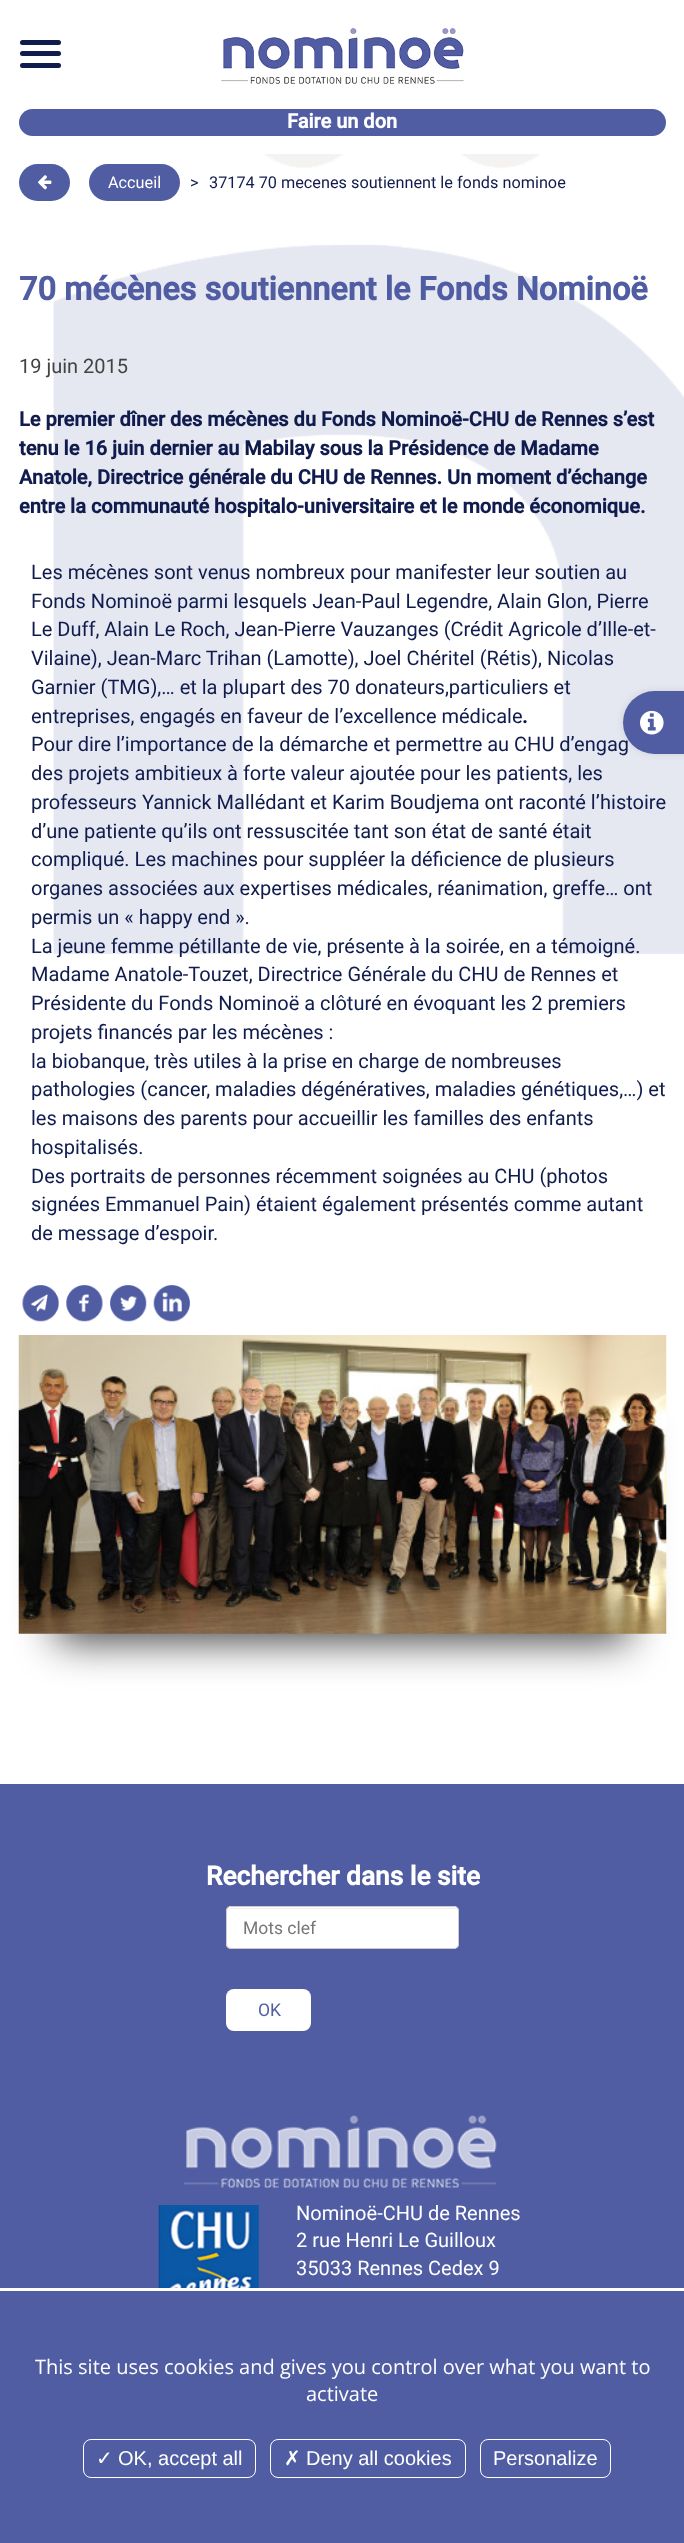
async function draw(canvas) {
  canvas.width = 684
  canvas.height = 2543
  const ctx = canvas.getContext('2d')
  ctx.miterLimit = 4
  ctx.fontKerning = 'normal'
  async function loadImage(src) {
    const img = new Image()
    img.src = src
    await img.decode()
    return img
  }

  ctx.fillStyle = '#fff'
  ctx.fillRect(0, 0, 684, 2543)
  ctx.drawImage(await loadImage('image0.png'), 53, 154, 631, 800)
  ctx.fillStyle = '#101c4d'
  ctx.beginPath()
  ctx.roundRect(20, 40, 41, 5, 2.5)
  ctx.fill()
  ctx.beginPath()
  ctx.roundRect(20, 51, 41, 5, 2.5)
  ctx.fill()
  ctx.beginPath()
  ctx.roundRect(20, 63, 41, 5, 2.5)
  ctx.fill()
  ctx.drawImage(await loadImage('image1.png'), 221, 28, 243, 56)
  ctx.fillStyle = '#505da3'
  ctx.beginPath()
  ctx.roundRect(19, 109, 647, 27, 13.5)
  ctx.fill()
  ctx.font = 'bold 20px Roboto'
  ctx.fillStyle = '#fff'
  ctx.fillText('Faire un don', 287, 128)
  ctx.fillStyle = '#505da3'
  ctx.beginPath()
  ctx.roundRect(19, 164, 51, 37, 18.5)
  ctx.fill()
  ctx.drawImage(await loadImage('image2.png'), 38, 175, 14, 15)
  ctx.beginPath()
  ctx.roundRect(89, 164, 91, 37, 18.5)
  ctx.fill()
  ctx.font = '16.25px Roboto'
  ctx.fillStyle = '#fff'
  ctx.fillText('Accueil', 108, 188)
  ctx.fillStyle = '#101c4d'
  ctx.fillText('>', 190, 188)
  ctx.fillText('37174 70 mecenes soutiennent le fonds nominoe', 209, 188)
  ctx.font = 'bold 32.5px Roboto'
  ctx.fillStyle = '#505da3'
  ctx.fillText('70 mécènes soutiennent le Fonds Nominoë', 19, 300)
  ctx.font = '20px Roboto'
  ctx.fillStyle = '#434343'
  ctx.fillText('19 juin 2015', 19, 373)
  ctx.font = 'bold 20px Roboto'
  ctx.fillStyle = '#101c4d'
  ctx.fillText('Le premier dîner des mécènes du Fonds Nominoë-CHU de Rennes s’est', 19, 426)
  ctx.fillText('tenu le 16 juin dernier au Mabilay sous la Présidence de Madame', 19, 455)
  ctx.fillText('Anatole, Directrice générale du CHU de Rennes. Un moment d’échange', 19, 484)
  ctx.fillText('entre la communauté hospitalo-universitaire et le monde économique.', 19, 513)
  ctx.font = '20px Roboto'
  ctx.fillText('Les mécènes sont venus nombreux pour manifester leur soutien au', 31, 579)
  ctx.fillText('Fonds Nominoë parmi lesquels Jean-Paul Legendre, Alain Glon, Pierre', 31, 608)
  ctx.fillText('Le Duff, Alain Le Roch, Jean-Pierre Vauzanges (Crédit Agricole d’Ille-et-', 31, 636)
  ctx.fillText('Vilaine), Jean-Marc Trihan (Lamotte), Joel Chéritel (Rétis), Nicolas', 31, 665)
  ctx.fillText('Garnier (TMG),… et la plupart des 70 donateurs,particuliers et', 31, 694)
  ctx.fillText('entreprises, engagés en faveur de l’excellence médicale', 31, 723)
  ctx.font = 'bold 20px Roboto'
  ctx.fillText('.', 522, 723)
  ctx.font = '20px Roboto'
  ctx.fillText('Pour dire l’importance de la démarche et permettre au CHU d’engag', 31, 751)
  ctx.fillText('des projets ambitieux à forte valeur ajoutée pour les patients, les', 31, 780)
  ctx.fillText('professeurs Yannick Mallédant et Karim Boudjema ont raconté l’histoire', 31, 809)
  ctx.fillText('d’une patiente qu’ils ont ressuscitée tant son état de santé était', 31, 838)
  ctx.fillText('compliqué. Les machines pour suppléer la déficience de plusieurs', 31, 866)
  ctx.fillText('organes associées aux expertises médicales, réanimation, greffe… ont', 31, 895)
  ctx.fillText('permis un « happy end ».', 31, 924)
  ctx.fillText('La jeune femme pétillante de vie, présente à la soirée, en a témoigné.', 31, 953)
  ctx.fillText('Madame Anatole-Touzet, Directrice Générale du CHU de Rennes et', 31, 981)
  ctx.fillText('Présidente du Fonds Nominoë a clôturé en évoquant les 2 premiers', 31, 1010)
  ctx.fillText('projets financés par les mécènes :', 31, 1039)
  ctx.fillText('la biobanque, très utiles à la prise en charge de nombreuses', 31, 1068)
  ctx.fillText('pathologies (cancer, maladies dégénératives, maladies génétiques,…) et', 31, 1096)
  ctx.fillText('les maisons des parents pour accueillir les familles des enfants', 31, 1125)
  ctx.fillText('hospitalisés.', 31, 1154)
  ctx.fillText('Des portraits de personnes récemment soignées au CHU (photos', 31, 1183)
  ctx.fillText('signées Emmanuel Pain) étaient également présentés comme autant', 31, 1211)
  ctx.fillText('de message d’espoir.', 31, 1240)
  ctx.drawImage(await loadImage('image3.png'), 22, 1285, 37, 37)
  ctx.drawImage(await loadImage('image4.png'), 66, 1285, 37, 37)
  ctx.drawImage(await loadImage('image5.png'), 110, 1285, 37, 37)
  ctx.drawImage(await loadImage('image6.png'), 153, 1285, 37, 37)
  ctx.fillStyle = '#000000bf'
  ctx.filter = 'blur(20.5px)'
  ctx.beginPath()
  ctx.rect(56, 1418, 573, 223)
  ctx.fill()
  ctx.filter = 'none'
  ctx.drawImage(await loadImage('image7.png'), 18, 1335, 649, 299)
  ctx.fillStyle = '#00000033'
  ctx.filter = 'blur(5.5px)'
  ctx.beginPath()
  ctx.roundRect(626, 695, 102, 55, 27.5)
  ctx.fill()
  ctx.filter = 'none'
  ctx.fillStyle = '#505da3'
  ctx.beginPath()
  ctx.roundRect(623, 691, 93, 63, 31.5)
  ctx.fill()
  ctx.drawImage(await loadImage('image8.png'), 640, 710, 24, 25)
  ctx.fillRect(0, 1784, 684, 504)
  ctx.font = 'bold 26.25px Roboto'
  ctx.fillStyle = '#fff'
  ctx.fillText('Rechercher dans le site', 206, 1885)
  ctx.beginPath()
  ctx.roundRect(226, 1906, 233, 43, 5)
  ctx.fill()
  ctx.fillStyle = '#ececec'
  ctx.beginPath()
  ctx.moveTo(231, 1909)
  ctx.lineTo(454, 1909)
  ctx.bezierCurveTo(456, 1909, 458, 1910, 458, 1912)
  ctx.bezierCurveTo(458, 1910, 456, 1908, 454, 1908)
  ctx.lineTo(232, 1908)
  ctx.bezierCurveTo(231, 1908, 229, 1909, 229, 1910)
  ctx.closePath()
  ctx.fill()
  ctx.beginPath()
  ctx.roundRect(226.5, 1906.5, 232, 42, 4.5)
  ctx.strokeStyle = '#ccc'
  ctx.stroke()
  ctx.font = '17.5px Roboto'
  ctx.fillStyle = '#777'
  ctx.fillText('Mots clef', 243, 1934)
  ctx.fillStyle = '#fff'
  ctx.beginPath()
  ctx.roundRect(226, 1989, 85, 42, 8)
  ctx.fill()
  ctx.fillStyle = '#505da3'
  ctx.fillText('OK', 258, 2016)
  ctx.drawImage(await loadImage('image9.png'), 183, 2115, 314, 73)
  ctx.drawImage(await loadImage('image10.png'), 158, 2205, 101, 83)
  ctx.font = '20px Roboto'
  ctx.fillStyle = '#fff'
  ctx.fillText('Nominoë-CHU de Rennes', 296, 2220)
  ctx.fillText('2 rue Henri Le Guilloux', 296, 2247)
  ctx.fillText('35033 Rennes Cedex 9', 296, 2275)
  ctx.fillStyle = '#505da3'
  ctx.fillRect(0, 2291, 684, 252)
  ctx.font = '20px Open Sans'
  ctx.fillStyle = '#fff'
  ctx.fillText('This site uses cookies and gives you control over what you want to', 35, 2374)
  ctx.fillText('activate', 306, 2401)
  ctx.beginPath()
  ctx.roundRect(83.5, 2439.5, 172, 38, 7.5)
  ctx.strokeStyle = '#fff'
  ctx.stroke()
  ctx.font = '20px DejaVu Sans'
  ctx.fillText('✓', 96, 2465)
  ctx.font = '20px Liberation Sans'
  ctx.fillText('OK, accept all', 118, 2465)
  ctx.beginPath()
  ctx.roundRect(270.5, 2439.5, 195, 38, 7.5)
  ctx.stroke()
  ctx.font = '20px DejaVu Sans'
  ctx.fillText('✗', 284, 2465)
  ctx.font = '20px Liberation Sans'
  ctx.fillText('Deny all cookies', 306, 2465)
  ctx.beginPath()
  ctx.roundRect(480.5, 2439.5, 130, 38, 7.5)
  ctx.stroke()
  ctx.fillText('Personalize', 493, 2465)
}

draw(document.querySelector('canvas'))
